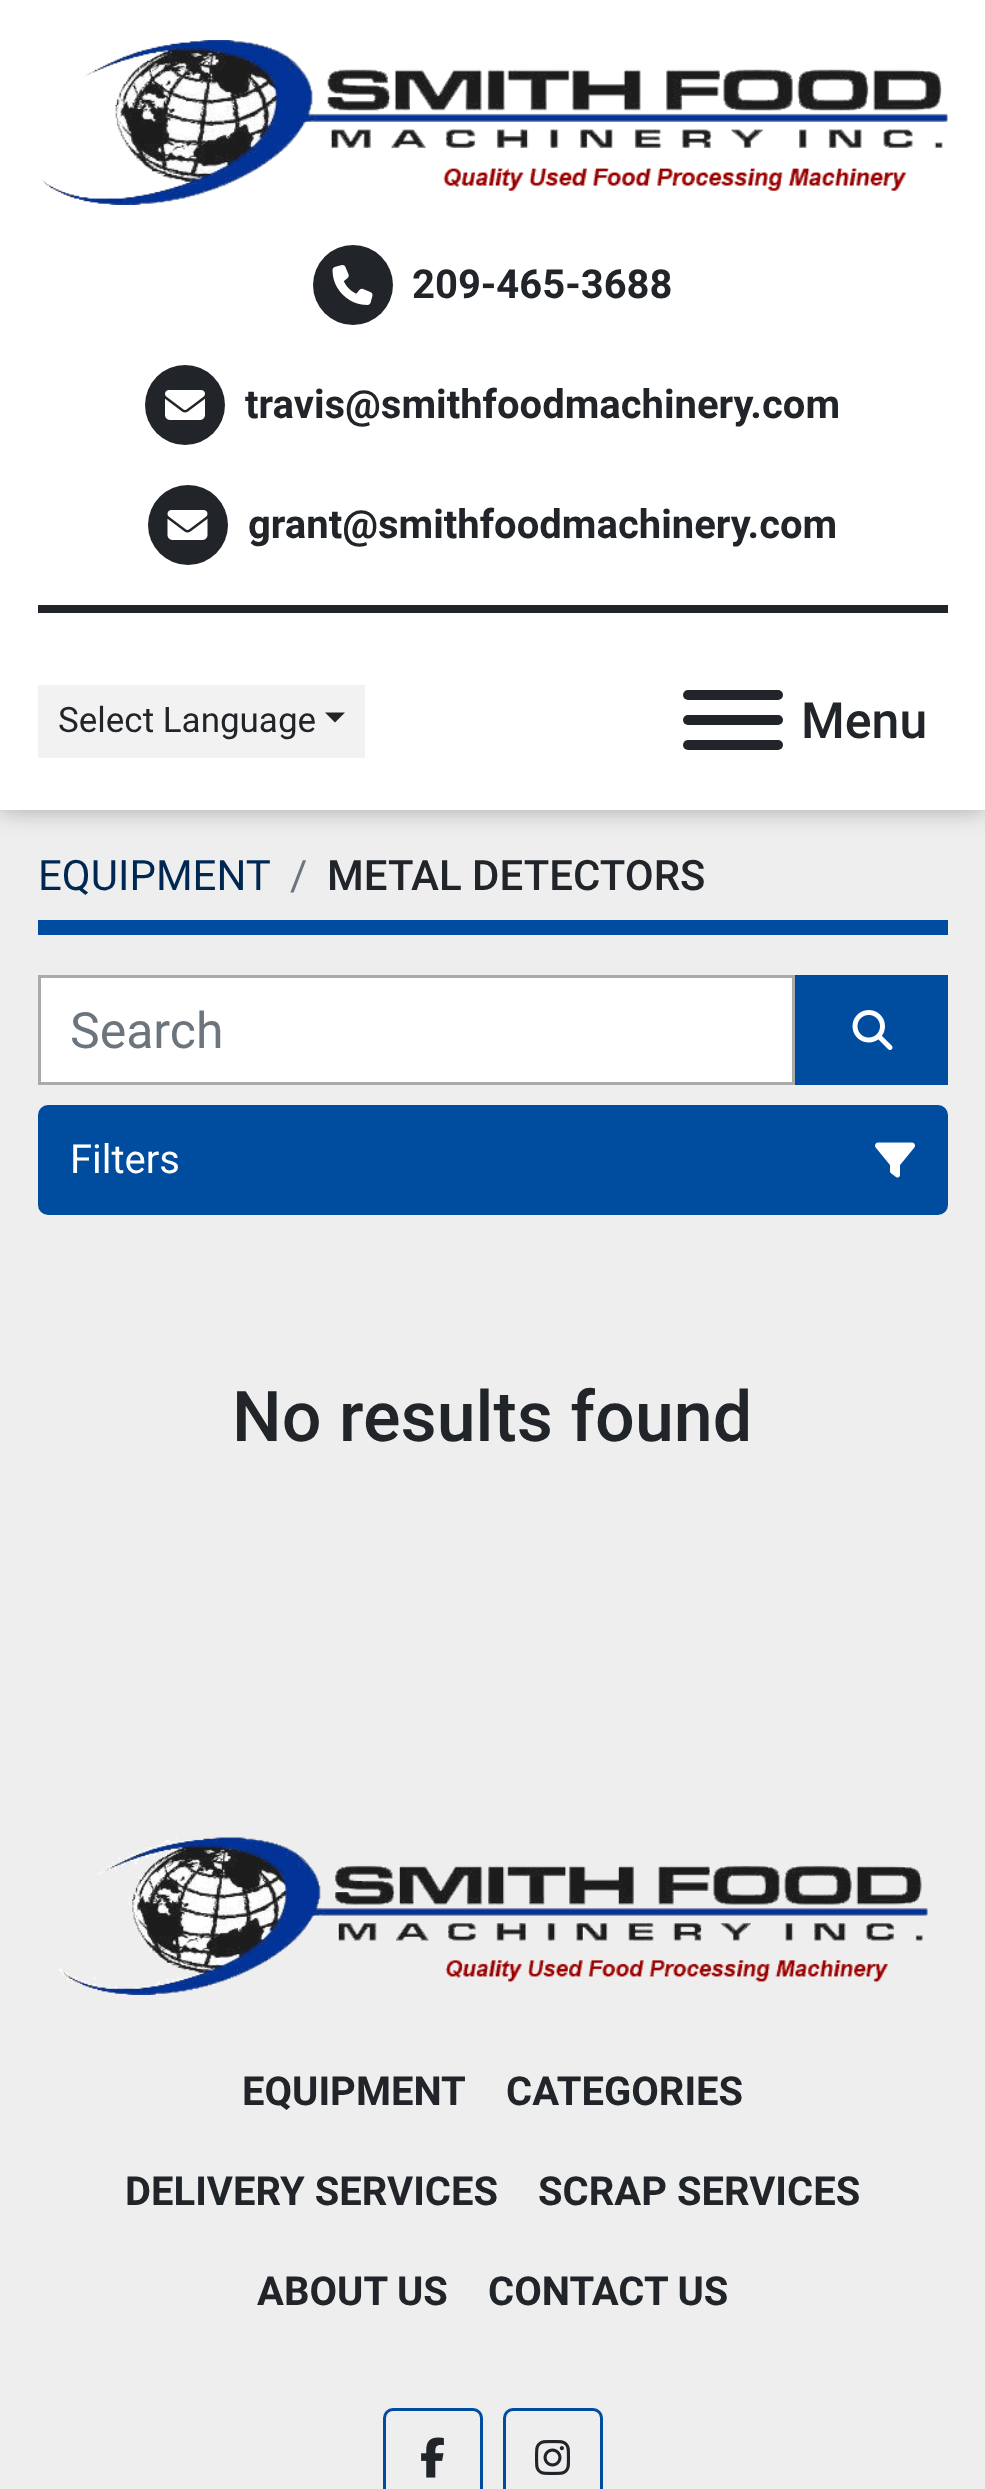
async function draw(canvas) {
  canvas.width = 985
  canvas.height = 2489
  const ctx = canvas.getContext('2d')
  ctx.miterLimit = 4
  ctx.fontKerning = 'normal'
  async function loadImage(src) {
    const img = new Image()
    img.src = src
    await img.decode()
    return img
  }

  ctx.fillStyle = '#eee'
  ctx.fillRect(0, 0, 985, 2489)
  ctx.fillStyle = '#0000004d'
  ctx.filter = 'blur(12.5px)'
  ctx.beginPath()
  ctx.rect(0, 0, 985, 810)
  ctx.fill()
  ctx.filter = 'none'
  ctx.fillStyle = '#fff'
  ctx.fillRect(0, 0, 985, 810)
  ctx.drawImage(await loadImage('image0.png'), 41, 40, 907, 165)
  ctx.fillStyle = '#212529'
  ctx.beginPath()
  ctx.arc(353, 285, 40, 0, 2 * Math.PI)
  ctx.fill()
  ctx.drawImage(await loadImage('image1.png'), 332, 265, 41, 40)
  ctx.font = 'bold 40px Roboto'
  ctx.fillText('209-465-3688', 412, 298)
  ctx.beginPath()
  ctx.arc(185, 405, 40, 0, 2 * Math.PI)
  ctx.fill()
  ctx.drawImage(await loadImage('image2.png'), 165, 390, 40, 30)
  ctx.fillText('travis@smithfoodmachinery.com', 245, 418)
  ctx.beginPath()
  ctx.arc(188, 525, 40, 0, 2 * Math.PI)
  ctx.fill()
  ctx.drawImage(await loadImage('image3.png'), 167, 510, 41, 30)
  ctx.fillText('grant@smithfoodmachinery.com', 248, 538)
  ctx.fillRect(38, 605, 910, 8)
  ctx.fillStyle = '#f2f2f2'
  ctx.fillRect(38, 685, 327, 73)
  ctx.font = '35px Roboto'
  ctx.fillStyle = '#212529'
  ctx.fillText('Select Language', 58, 732)
  ctx.beginPath()
  ctx.moveTo(325, 712.5)
  ctx.lineTo(345, 712.5)
  ctx.lineTo(335, 722.5)
  ctx.closePath()
  ctx.fill()
  ctx.beginPath()
  ctx.roundRect(683, 715, 100, 10, 5)
  ctx.fill()
  ctx.beginPath()
  ctx.roundRect(683, 690, 100, 10, 5)
  ctx.fill()
  ctx.beginPath()
  ctx.roundRect(683, 740, 100, 10, 5)
  ctx.fill()
  ctx.font = '500 50px Roboto'
  ctx.fillText('Menu', 801, 738)
  ctx.fillStyle = '#004c9e'
  ctx.fillRect(38, 920, 910, 15)
  ctx.font = '42px Roboto'
  ctx.fillStyle = '#002752'
  ctx.fillText('EQUIPMENT', 38, 890)
  ctx.fillStyle = '#6c757d'
  ctx.fillText('/', 290, 890)
  ctx.font = '500 42px Roboto'
  ctx.fillStyle = '#212529'
  ctx.fillText('METAL DETECTORS', 327, 890)
  ctx.fillStyle = '#fff'
  ctx.beginPath()
  ctx.rect(39.5, 976.5, 754, 107)
  ctx.fill()
  ctx.strokeStyle = '#aaa'
  ctx.lineWidth = 3
  ctx.stroke()
  ctx.font = '50px Roboto'
  ctx.fillStyle = '#6c757d'
  ctx.fillText('Search', 70, 1048)
  ctx.fillStyle = '#004c9e'
  ctx.fillRect(795, 975, 153, 110)
  ctx.drawImage(await loadImage('image4.png'), 852, 1010, 41, 40)
  ctx.beginPath()
  ctx.roundRect(39.5, 1106.5, 907, 107, 8.5)
  ctx.fill()
  ctx.strokeStyle = '#004c9e'
  ctx.stroke()
  ctx.font = '40px Roboto'
  ctx.fillStyle = '#fff'
  ctx.fillText('Filters', 70, 1173)
  ctx.drawImage(await loadImage('image5.png'), 875, 1142, 40, 36)
  ctx.font = '500 70px Roboto'
  ctx.fillStyle = '#212529'
  ctx.fillText('No results found', 232, 1441)
  ctx.drawImage(await loadImage('image6.png'), 59, 1837, 869, 158)
  ctx.font = 'bold 40px Roboto'
  ctx.fillText('EQUIPMENT', 242, 2105)
  ctx.fillText('CATEGORIES', 506, 2105)
  ctx.fillText('DELIVERY SERVICES', 125, 2205)
  ctx.fillText('SCRAP SERVICES', 538, 2205)
  ctx.fillText('ABOUT US', 257, 2305)
  ctx.fillText('CONTACT US', 488, 2305)
  ctx.beginPath()
  ctx.roundRect(384.5, 2409.5, 97, 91, 8.5)
  ctx.stroke()
  ctx.drawImage(await loadImage('image7.png'), 421, 2437, 23, 41)
  ctx.beginPath()
  ctx.roundRect(504.5, 2409.5, 97, 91, 8.5)
  ctx.stroke()
  ctx.drawImage(await loadImage('image8.png'), 535, 2440, 35, 35)
}

draw(document.querySelector('canvas'))
